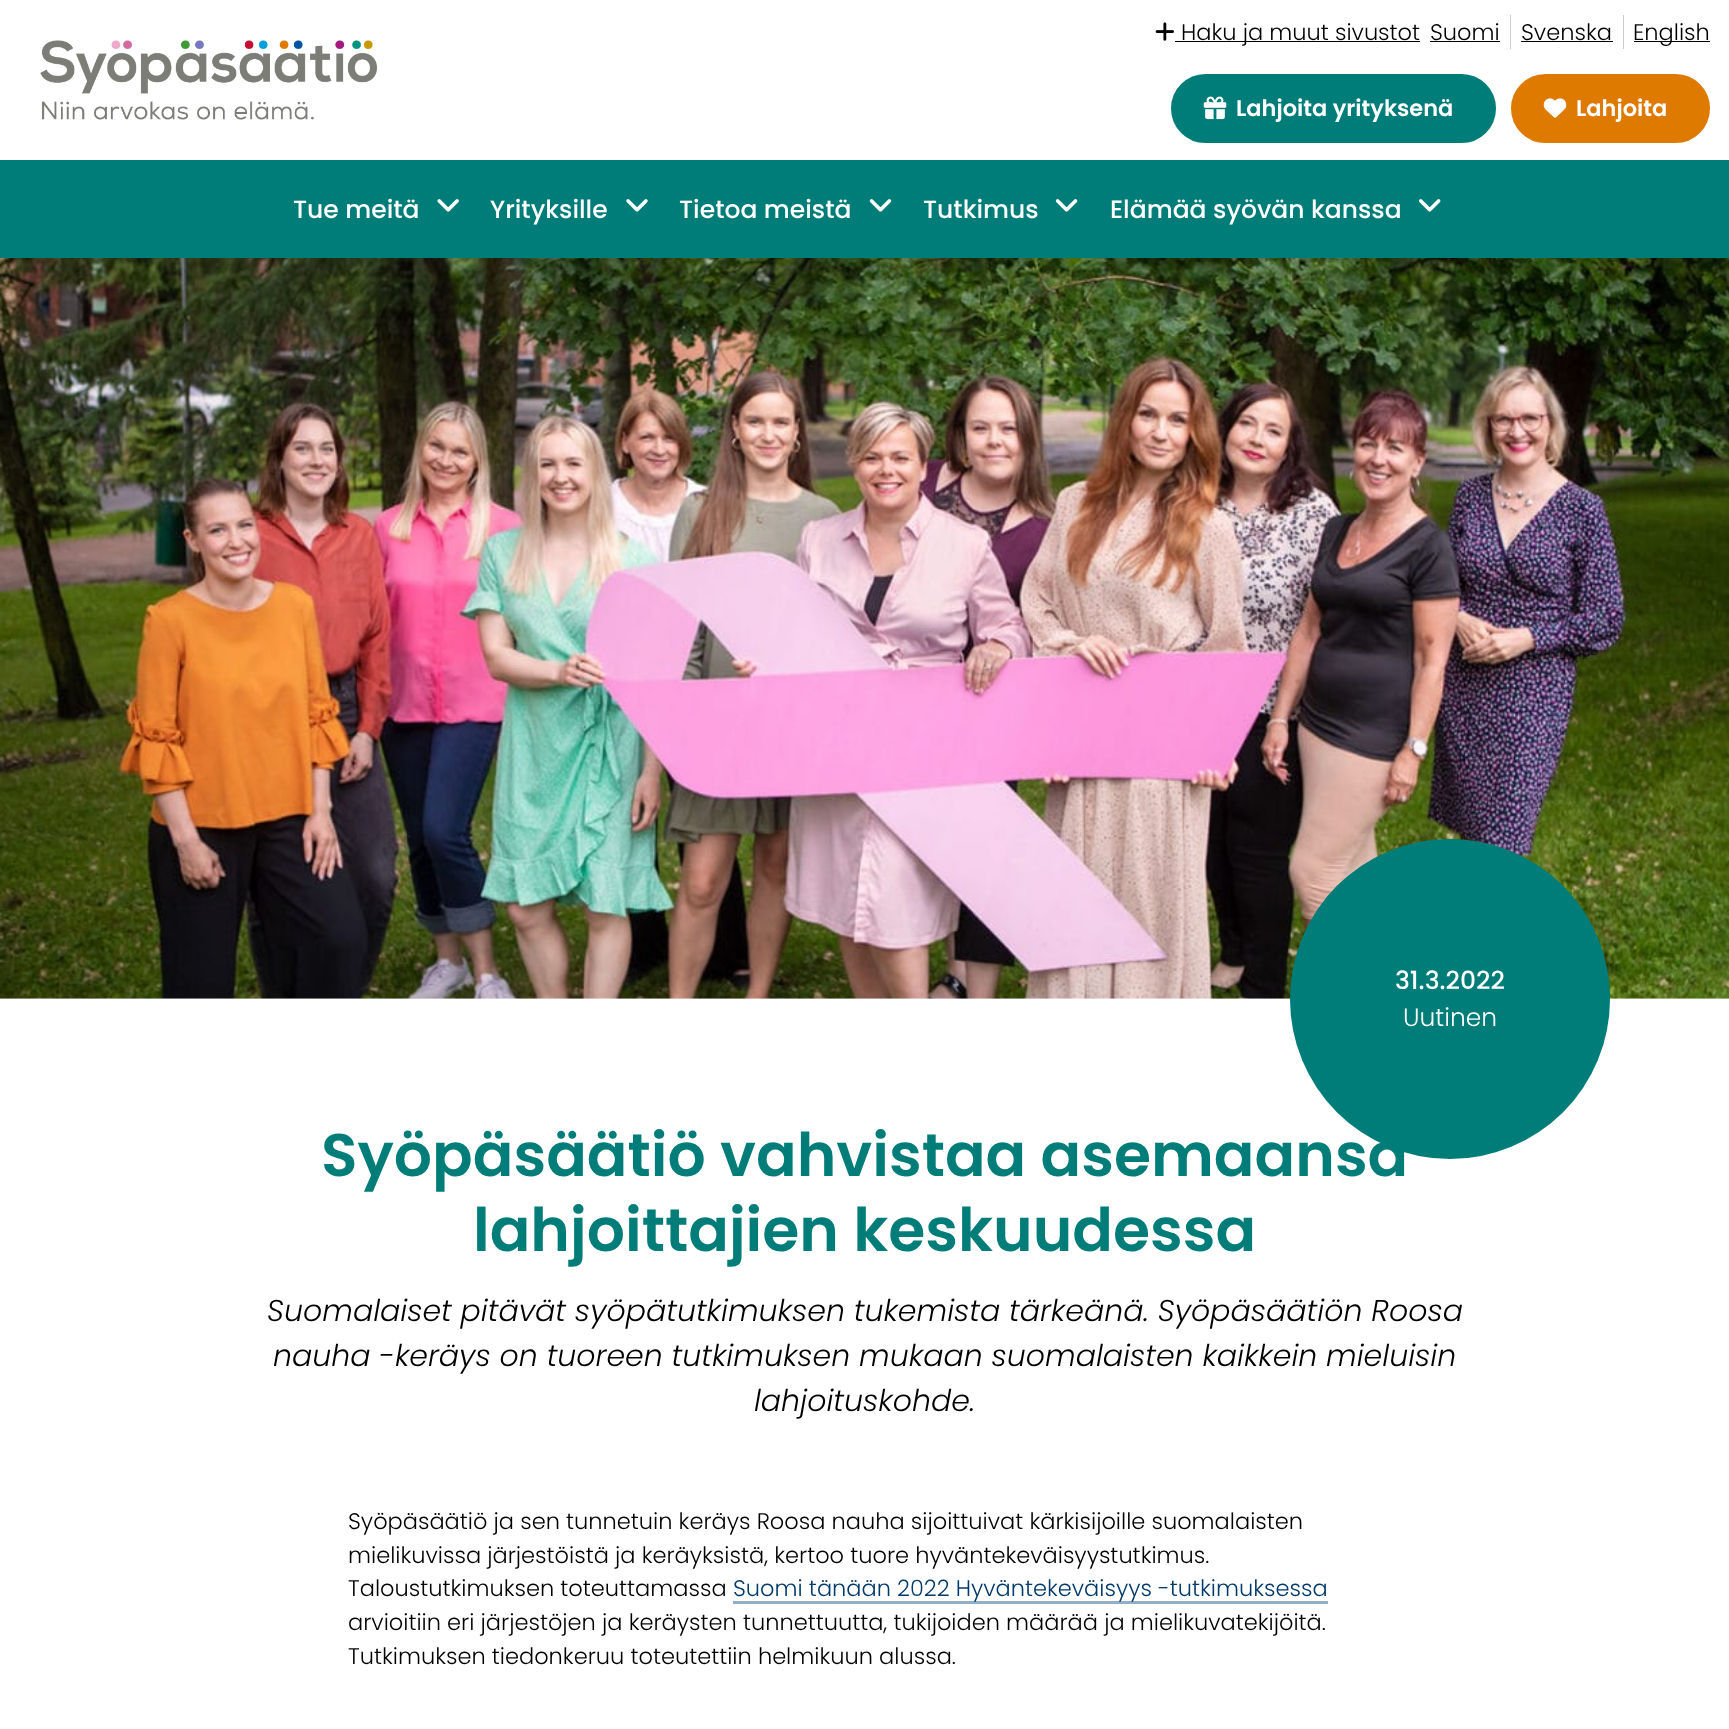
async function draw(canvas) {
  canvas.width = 1729
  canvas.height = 1729
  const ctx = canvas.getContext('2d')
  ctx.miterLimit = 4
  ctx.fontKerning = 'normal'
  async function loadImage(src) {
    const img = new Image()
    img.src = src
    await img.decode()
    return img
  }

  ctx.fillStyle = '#fff'
  ctx.fillRect(0, 0, 1729, 1729)
  ctx.drawImage(await loadImage('image0.png'), 40, 40, 338, 80)
  ctx.drawImage(await loadImage('image1.png'), 1155, 22, 19, 19)
  ctx.fillStyle = '#000'
  ctx.fillRect(1175, 41, 245, 1)
  ctx.font = '300 22.5px Poppins'
  ctx.fillText('Haku ja muut sivustot', 1181, 40)
  ctx.fillStyle = '#ccc'
  ctx.fillRect(1510, 15, 1, 34)
  ctx.fillStyle = '#000'
  ctx.fillText('Suomi', 1430, 40)
  ctx.fillRect(1430, 41, 70, 1)
  ctx.fillStyle = '#ccc'
  ctx.fillRect(1623, 15, 1, 34)
  ctx.fillStyle = '#000'
  ctx.fillText('Svenska', 1521, 40)
  ctx.fillRect(1521, 41, 92, 1)
  ctx.fillRect(1634, 41, 76, 1)
  ctx.fillText('English', 1633, 40)
  ctx.fillStyle = '#007d78'
  ctx.beginPath()
  ctx.roundRect(1172.5, 75.5, 322, 66, 33)
  ctx.fill()
  ctx.strokeStyle = '#007d78'
  ctx.lineWidth = 3
  ctx.stroke()
  ctx.drawImage(await loadImage('image2.png'), 1203, 96, 24, 24)
  ctx.font = '600 22.5px Poppins'
  ctx.fillStyle = '#fff'
  ctx.fillText('Lahjoita yrityksenä', 1236, 116)
  ctx.fillStyle = '#df7a00'
  ctx.beginPath()
  ctx.roundRect(1512.5, 75.5, 196, 66, 33)
  ctx.fill()
  ctx.strokeStyle = '#df7a00'
  ctx.stroke()
  ctx.drawImage(await loadImage('image3.png'), 1543, 98, 24, 20)
  ctx.fillStyle = '#fff'
  ctx.fillText('Lahjoita', 1576, 116)
  ctx.fillStyle = '#007d78'
  ctx.fillRect(0, 160, 1729, 98)
  ctx.font = '500 25px Poppins'
  ctx.fillStyle = '#fff'
  ctx.fillText('Tue meitä', 293, 218)
  ctx.drawImage(await loadImage('image4.png'), 437, 199, 22, 13)
  ctx.fillText('Yrityksille', 490, 218)
  ctx.drawImage(await loadImage('image5.png'), 626, 199, 22, 13)
  ctx.fillText('Tietoa meistä', 679, 218)
  ctx.drawImage(await loadImage('image6.png'), 869, 199, 23, 13)
  ctx.fillText('Tutkimus', 923, 218)
  ctx.drawImage(await loadImage('image7.png'), 1055, 199, 23, 13)
  ctx.fillText('Elämää syövän kanssa', 1110, 218)
  ctx.drawImage(await loadImage('image8.png'), 1419, 199, 22, 13)
  ctx.drawImage(await loadImage('image9.png'), 0, 258, 1729, 741)
  ctx.fillStyle = '#007d78'
  ctx.beginPath()
  ctx.arc(1450, 999, 160, 0, 2 * Math.PI)
  ctx.fill()
  ctx.fillStyle = '#fff'
  ctx.fillText('31.3.2022', 1395, 989)
  ctx.font = '300 25px Poppins'
  ctx.fillText('Uutinen', 1403, 1026)
  ctx.font = '600 60px Poppins'
  ctx.fillStyle = '#007d78'
  ctx.fillText('Syöpäsäätiö vahvistaa asemaansa', 321, 1176)
  ctx.fillText('lahjoittajien keskuudessa', 473, 1251)
  ctx.font = 'italic 300 30px Poppins'
  ctx.fillStyle = '#000'
  ctx.fillText('Suomalaiset pitävät syöpätutkimuksen tukemista tärkeänä. Syöpäsäätiön Roosa', 267, 1321)
  ctx.fillText('nauha -keräys on tuoreen tutkimuksen mukaan suomalaisten kaikkein mieluisin', 273, 1366)
  ctx.fillText('lahjoituskohde.', 754, 1411)
  ctx.font = '300 22.5px Poppins'
  ctx.fillText('Syöpäsäätiö ja sen tunnetuin keräys Roosa nauha sijoittuivat kärkisijoille suomalaisten', 348, 1529)
  ctx.fillText('mielikuvissa järjestöistä ja keräyksistä, kertoo tuore hyväntekeväisyystutkimus.', 348, 1563)
  ctx.fillText('Taloustutkimuksen toteuttamassa', 348, 1596)
  ctx.fillStyle = '#91afca'
  ctx.fillRect(733, 1601, 595, 3)
  ctx.fillStyle = '#00396b'
  ctx.fillText('Suomi tänään 2022 Hyväntekeväisyys -tutkimuksessa', 733, 1596)
  ctx.fillStyle = '#000'
  ctx.fillText('arvioitiin eri järjestöjen ja keräysten tunnettuutta, tukijoiden määrää ja mielikuvatekijöitä.', 348, 1630)
  ctx.fillText('Tutkimuksen tiedonkeruu toteutettiin helmikuun alussa.', 348, 1664)
}

draw(document.querySelector('canvas'))
